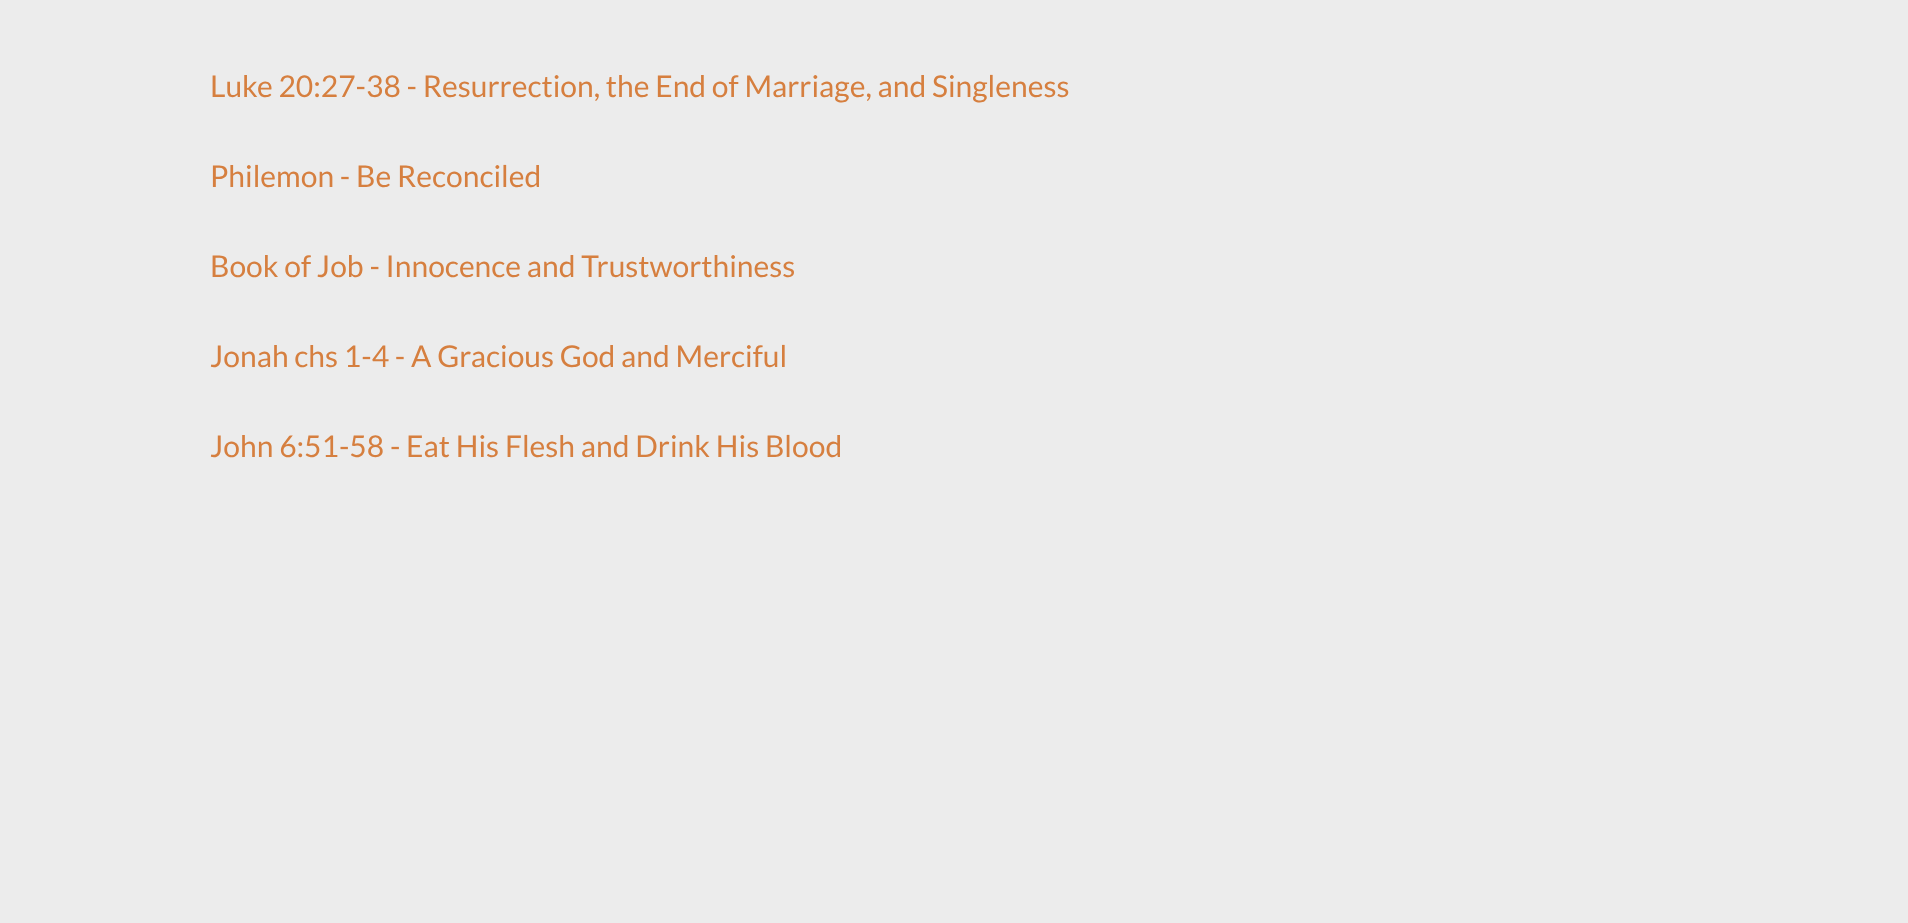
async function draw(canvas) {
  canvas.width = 1908
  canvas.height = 923
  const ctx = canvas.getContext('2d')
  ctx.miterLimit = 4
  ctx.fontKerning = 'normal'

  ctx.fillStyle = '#ececec'
  ctx.fillRect(0, 0, 1908, 923)
  ctx.font = '30px Lato'
  ctx.fillStyle = '#d67f3f'
  ctx.fillText('Luke 20:27-38 - Resurrection, the End of Marriage, and Singleness', 210, 97)
  ctx.fillText('Philemon - Be Reconciled', 210, 187)
  ctx.fillText('Book of Job - Innocence and Trustworthiness', 210, 277)
  ctx.fillText('Jonah chs 1-4 - A Gracious God and Merciful', 210, 367)
  ctx.fillText('John 6:51-58 - Eat His Flesh and Drink His Blood', 210, 457)
}

draw(document.querySelector('canvas'))
